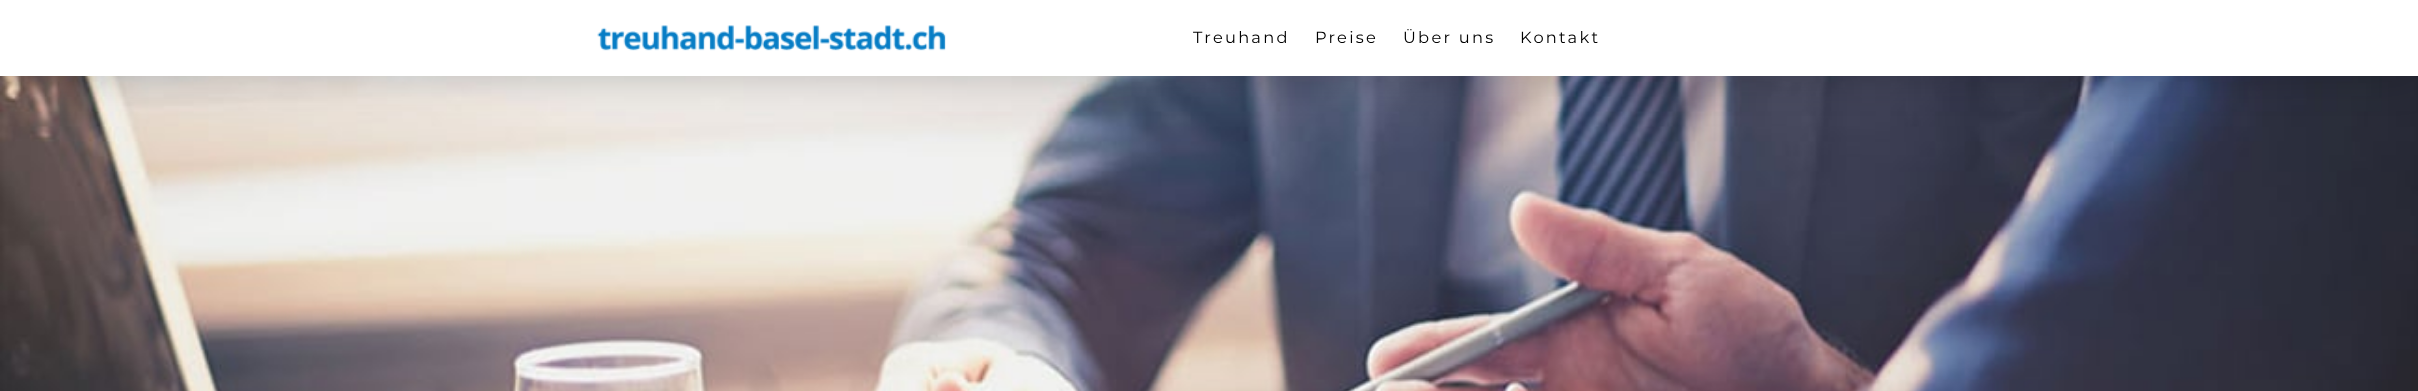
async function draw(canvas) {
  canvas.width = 2418
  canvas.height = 391
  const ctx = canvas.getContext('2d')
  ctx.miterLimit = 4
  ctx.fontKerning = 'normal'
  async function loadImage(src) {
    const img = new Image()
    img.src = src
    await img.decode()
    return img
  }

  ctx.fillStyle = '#fff'
  ctx.fillRect(0, 0, 2418, 391)
  ctx.drawImage(await loadImage('image1.png'), 0, 76, 2418, 315)
  ctx.fillStyle = '#00000033'
  ctx.filter = 'blur(19px)'
  ctx.beginPath()
  ctx.rect(0, 0, 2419, 76)
  ctx.fill()
  ctx.filter = 'none'
  ctx.fillStyle = '#fff'
  ctx.fillRect(0, 0, 2418, 76)
  ctx.drawImage(await loadImage('image0.png'), 597, 25, 349, 26)
  ctx.letterSpacing = '2.25px'
  ctx.font = '100 16.25px Montserrat'
  ctx.fillStyle = '#000'
  ctx.fillText('Treuhand', 1193, 43)
  ctx.fillText('Preise', 1315, 43)
  ctx.fillText('Über uns', 1403, 43)
  ctx.fillText('Kontakt', 1520, 43)
}

draw(document.querySelector('canvas'))
